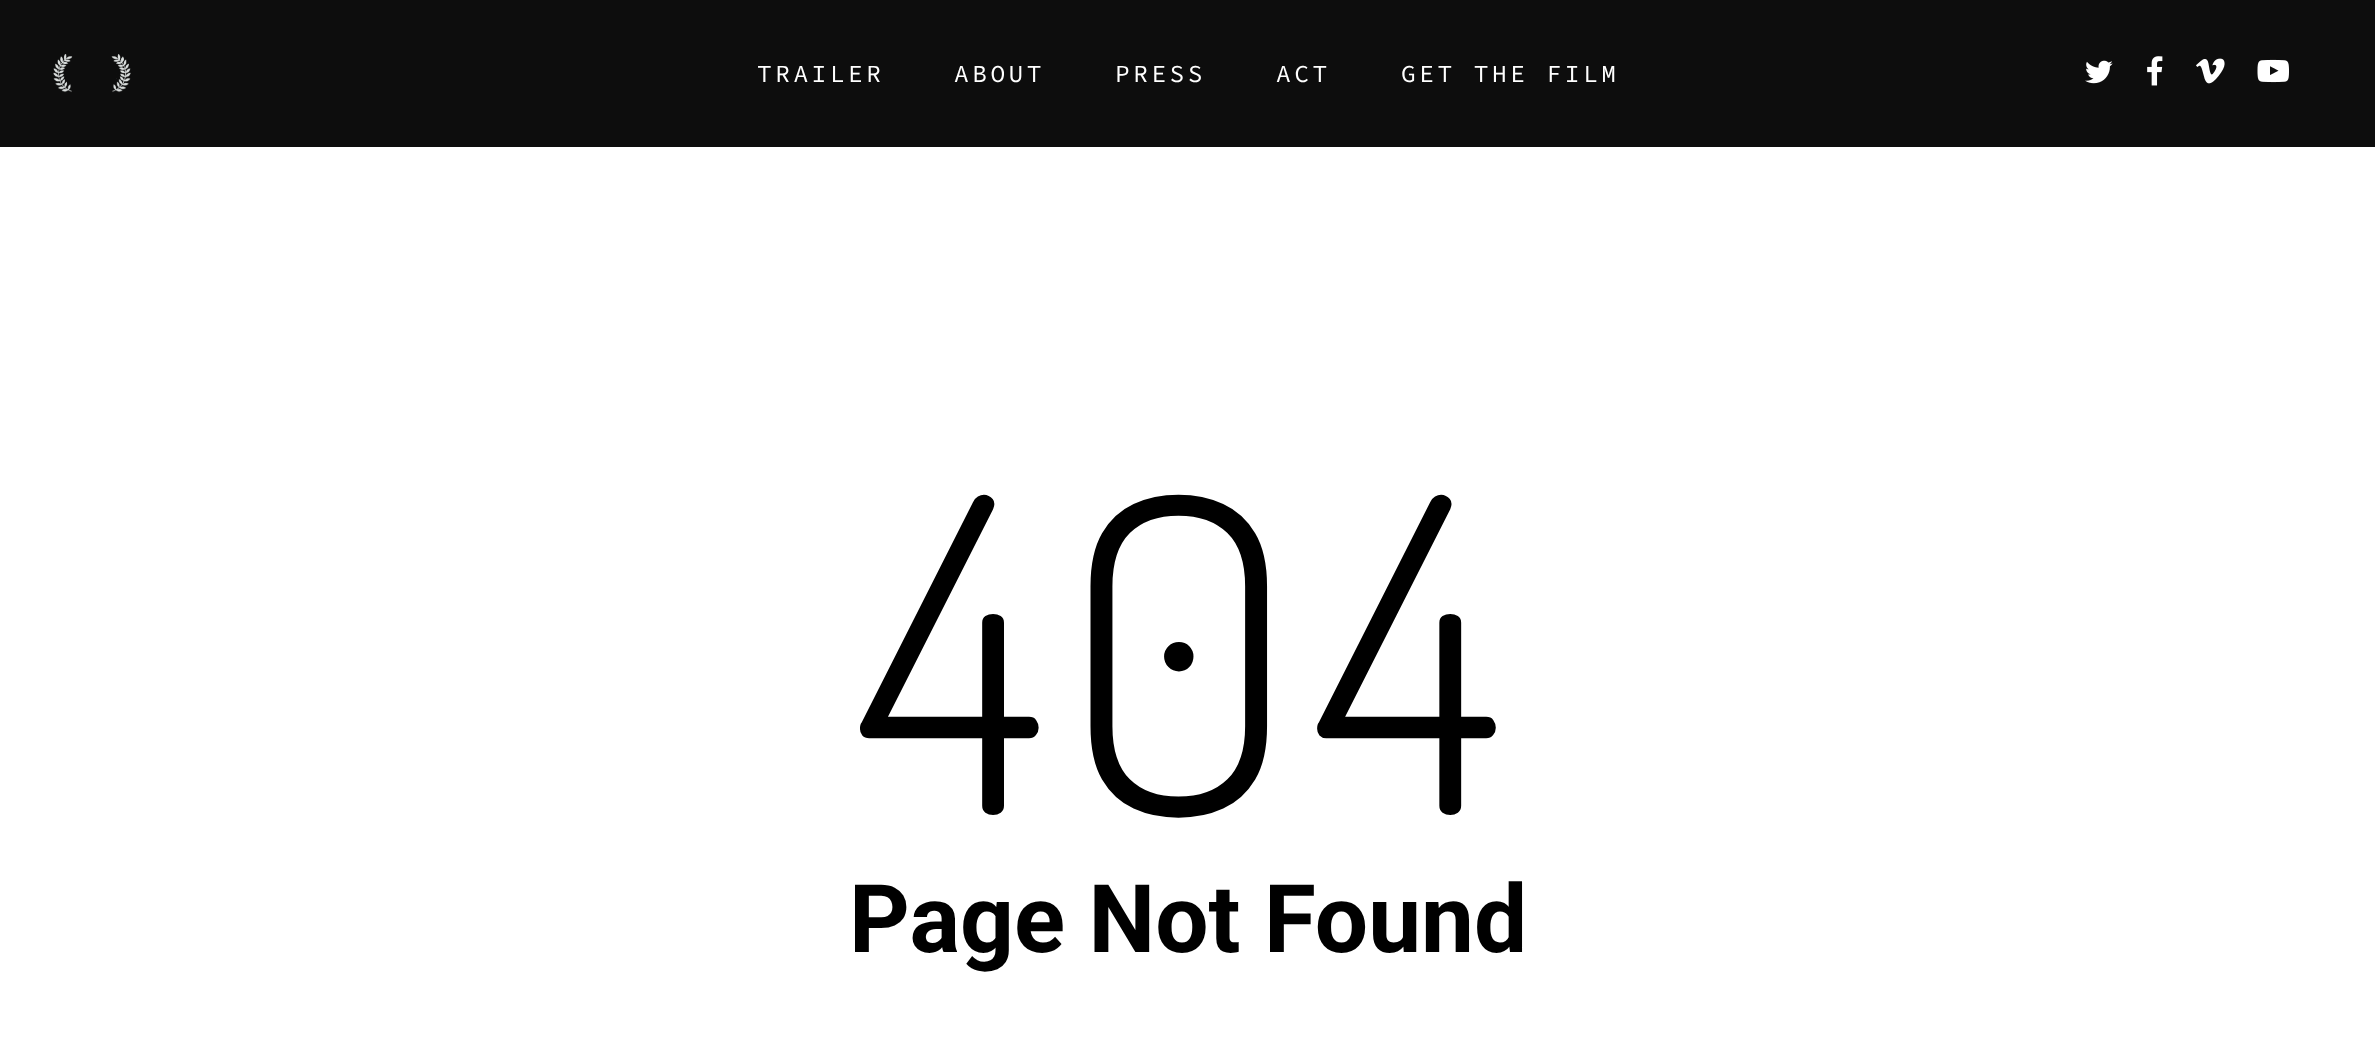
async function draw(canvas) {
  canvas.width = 2375
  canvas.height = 1052
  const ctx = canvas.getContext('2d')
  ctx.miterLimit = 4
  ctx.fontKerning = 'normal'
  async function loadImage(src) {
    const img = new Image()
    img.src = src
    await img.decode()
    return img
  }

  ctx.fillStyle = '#fff'
  ctx.fillRect(0, 0, 2375, 1052)
  ctx.fillStyle = '#0d0d0d'
  ctx.fillRect(0, 0, 2375, 147)
  ctx.drawImage(await loadImage('image0.png'), 53, 54, 78, 39)
  ctx.letterSpacing = '3.5px'
  ctx.font = '200 24.5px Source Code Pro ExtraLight'
  ctx.fillStyle = '#fff'
  ctx.fillText('TRAILER', 757, 82)
  ctx.fillText('ABOUT', 954, 82)
  ctx.fillText('PRESS', 1115, 82)
  ctx.fillText('ACT', 1276, 82)
  ctx.fillText('GET THE FILM', 1401, 82)
  ctx.drawImage(await loadImage('image1.png'), 2085, 60, 28, 24)
  ctx.drawImage(await loadImage('image2.png'), 2147, 56, 16, 30)
  ctx.drawImage(await loadImage('image3.png'), 2196, 58, 29, 26)
  ctx.drawImage(await loadImage('image4.png'), 2257, 59, 32, 24)
  ctx.letterSpacing = '19px'
  ctx.font = '300 438px Dosis'
  ctx.fillStyle = '#000'
  ctx.fillText('404', 856, 815)
  ctx.letterSpacing = '0px'
  ctx.font = 'bold 94.5px Roboto'
  ctx.fillText('Page Not Found', 849, 952)
}

draw(document.querySelector('canvas'))
